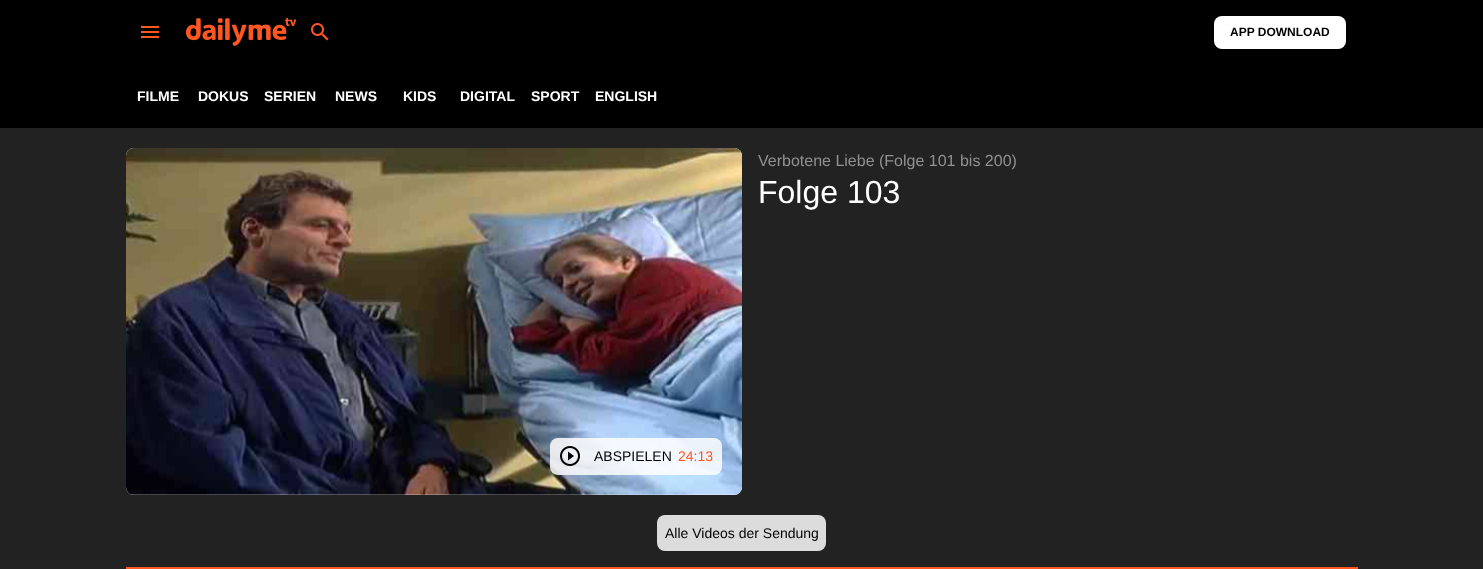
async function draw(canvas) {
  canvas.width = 1483
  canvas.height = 569
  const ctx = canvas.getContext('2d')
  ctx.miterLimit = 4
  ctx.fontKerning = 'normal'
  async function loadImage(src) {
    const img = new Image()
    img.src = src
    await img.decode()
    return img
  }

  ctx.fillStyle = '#222'
  ctx.fillRect(0, 0, 1483, 569)
  ctx.fillStyle = '#000'
  ctx.fillRect(0, 0, 1483, 128)
  ctx.drawImage(await loadImage('image0.png'), 141, 26, 18, 12)
  ctx.drawImage(await loadImage('image1.png'), 186, 18, 110, 28)
  ctx.drawImage(await loadImage('image2.png'), 311, 23, 18, 18)
  ctx.fillStyle = '#fff'
  ctx.beginPath()
  ctx.roundRect(1214, 16, 132, 33, 8)
  ctx.fill()
  ctx.font = 'bold 12px Liberation Sans'
  ctx.fillStyle = '#000'
  ctx.fillText('APP DOWNLOAD', 1230, 36)
  ctx.font = 'bold 14px Liberation Sans'
  ctx.fillStyle = '#fff'
  ctx.fillText('FILME', 137, 101)
  ctx.fillText('DOKUS', 198, 101)
  ctx.fillText('SERIEN', 264, 101)
  ctx.fillText('NEWS', 335, 101)
  ctx.fillText('KIDS', 403, 101)
  ctx.fillText('DIGITAL', 460, 101)
  ctx.fillText('SPORT', 531, 101)
  ctx.fillText('ENGLISH', 595, 101)
  ctx.font = '16px Liberation Sans'
  ctx.fillStyle = '#919191'
  ctx.fillText('Verbotene Liebe (Folge 101 bis 200)', 758, 166)
  ctx.font = '32px Liberation Sans'
  ctx.fillStyle = '#fff'
  ctx.fillText('Folge 103', 758, 203)
  ctx.beginPath()
  ctx.roundRect(126, 148, 616, 347, 8)
  ctx.fill()
  ctx.drawImage(await loadImage('image3.png'), 126, 148, 616, 347)
  ctx.fillStyle = '#ffffffd6'
  ctx.beginPath()
  ctx.roundRect(550, 438, 172, 37, 8)
  ctx.fill()
  ctx.drawImage(await loadImage('image4.png'), 560, 446, 20, 20)
  ctx.font = '14px Liberation Sans'
  ctx.fillStyle = '#000'
  ctx.fillText('ABSPIELEN', 594, 461)
  ctx.fillStyle = '#ff5722'
  ctx.fillText('24:13', 678, 461)
  ctx.fillStyle = '#dcdcdc'
  ctx.beginPath()
  ctx.roundRect(657, 515, 169, 36, 8)
  ctx.fill()
  ctx.fillStyle = '#000'
  ctx.fillText('Alle Videos der Sendung', 665, 538)
  ctx.fillStyle = '#ff5722'
  ctx.fillRect(126, 567, 1232, 2)
}

draw(document.querySelector('canvas'))
